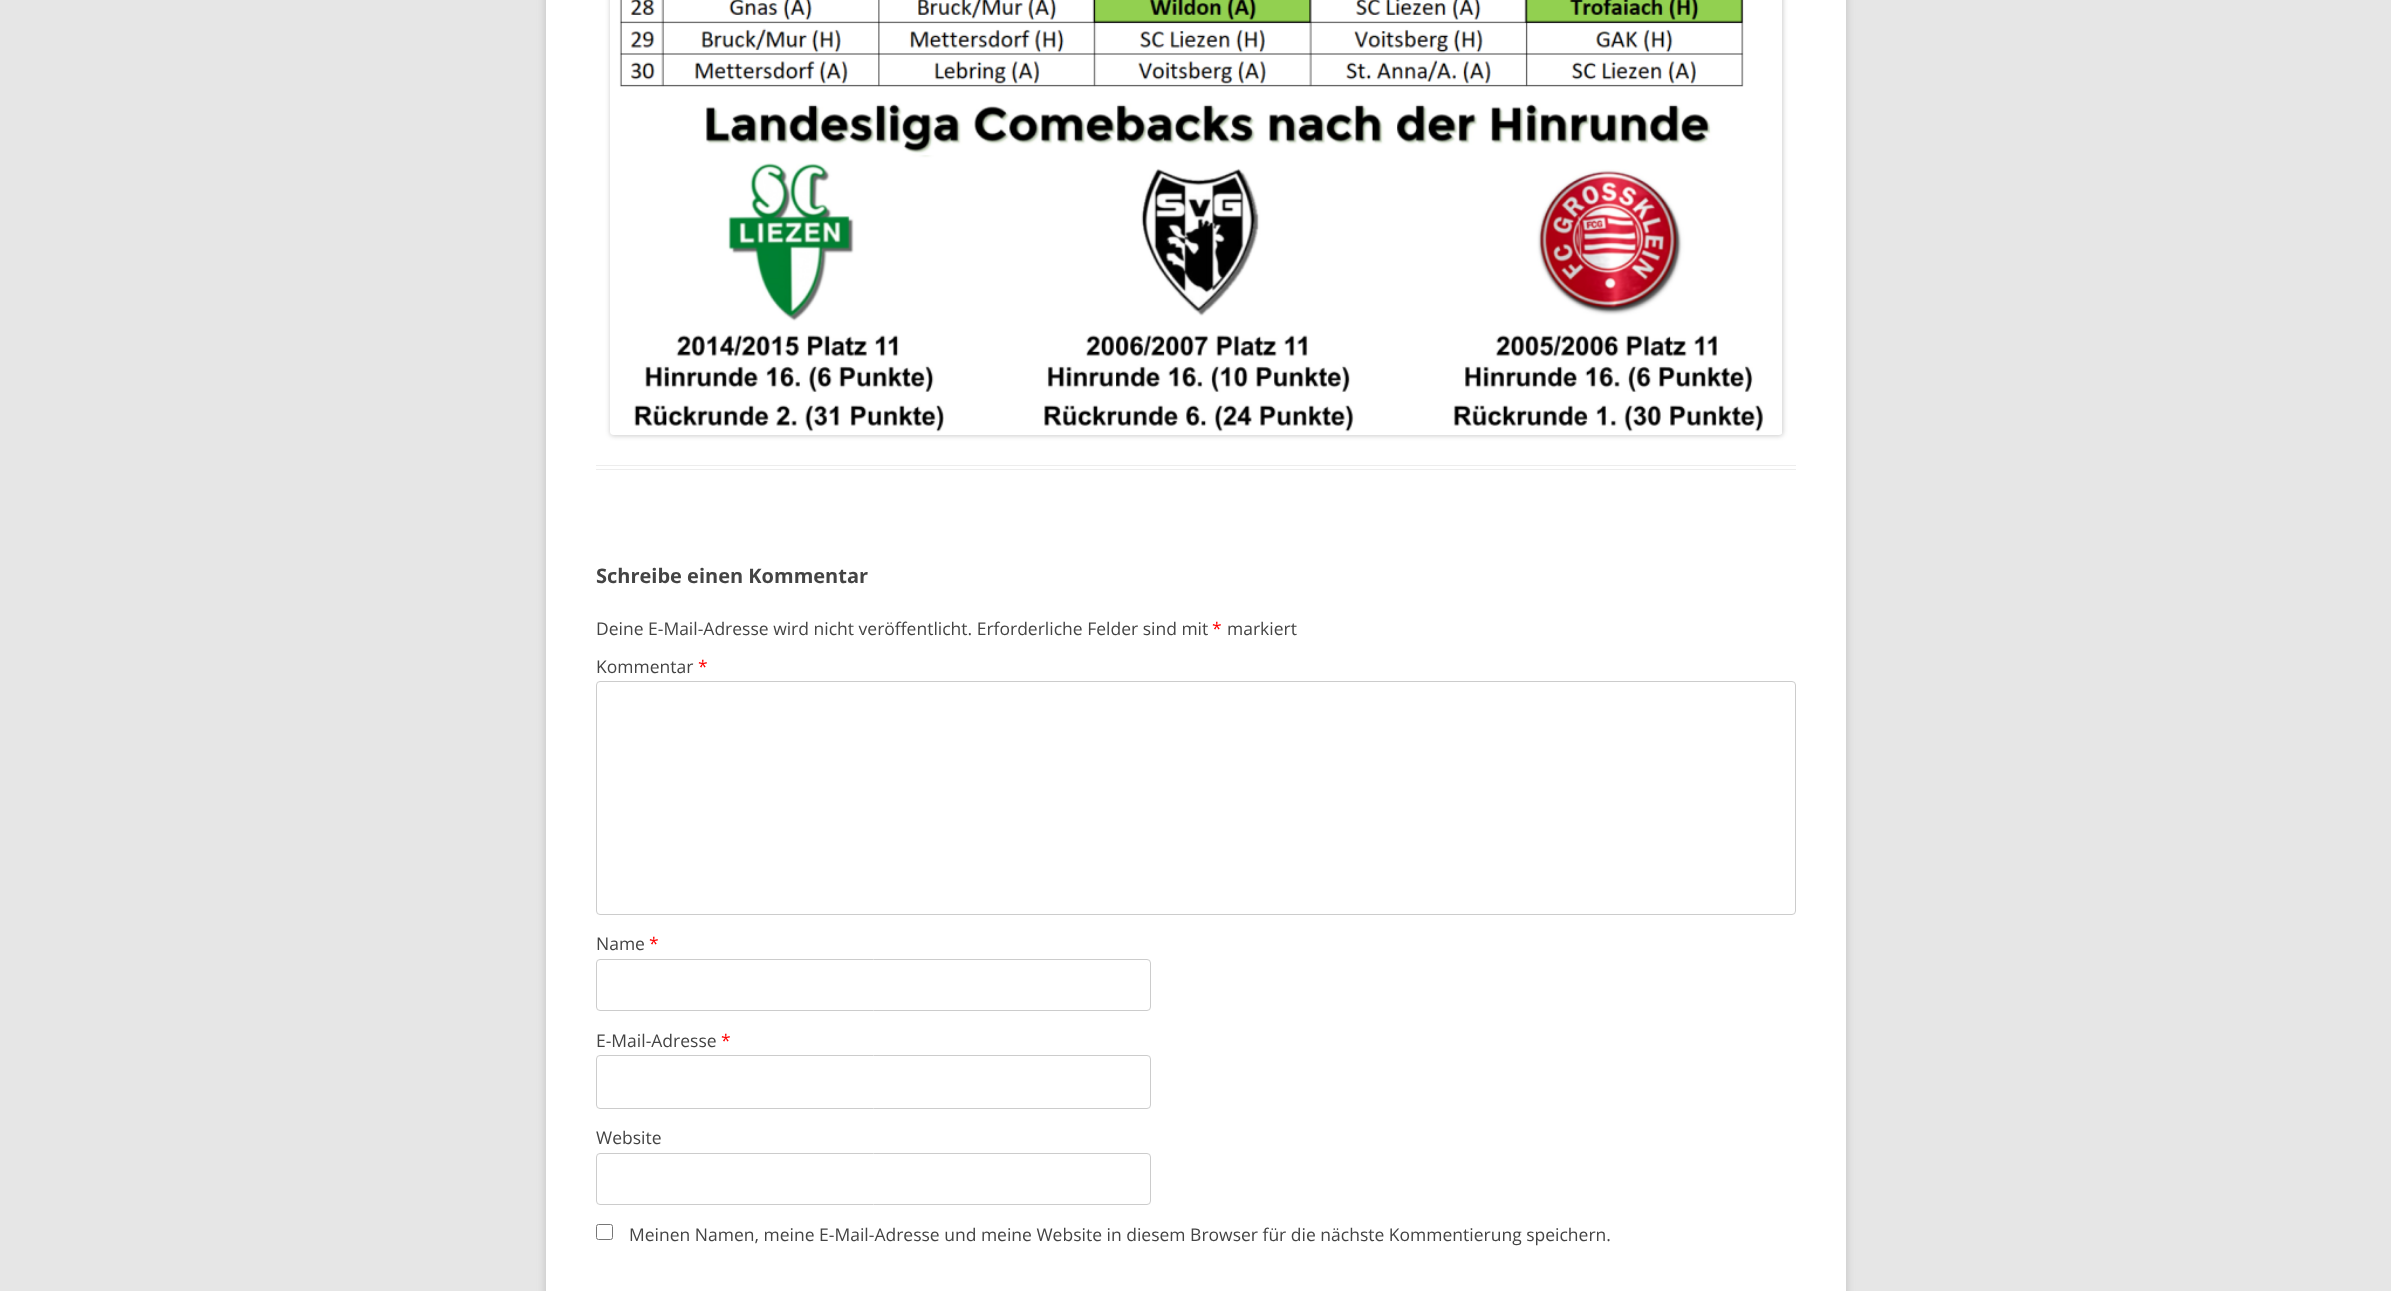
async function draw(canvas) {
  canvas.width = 2391
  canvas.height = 1291
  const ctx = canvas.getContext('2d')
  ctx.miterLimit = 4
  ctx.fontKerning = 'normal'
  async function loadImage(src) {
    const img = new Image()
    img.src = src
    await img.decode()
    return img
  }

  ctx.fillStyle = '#e6e6e6'
  ctx.fillRect(0, 0, 2391, 1291)
  ctx.fillStyle = '#6464644d'
  ctx.filter = 'blur(4px)'
  ctx.beginPath()
  ctx.rect(546, -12, 1300, 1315)
  ctx.fill()
  ctx.filter = 'none'
  ctx.fillStyle = '#fff'
  ctx.fillRect(546, 0, 1300, 1291)
  ctx.fillStyle = '#ededed'
  ctx.fillRect(596, 465, 1200, 1)
  ctx.fillRect(596, 469, 1200, 1)
  ctx.fillStyle = '#00000033'
  ctx.filter = 'blur(2.5px)'
  ctx.beginPath()
  ctx.roundRect(610, -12, 1173, 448, 4)
  ctx.fill()
  ctx.filter = 'none'
  ctx.drawImage(await loadImage('image0.png'), 610, 0, 1172, 435)
  ctx.font = 'bold 20px Open Sans'
  ctx.fillStyle = '#444'
  ctx.fillText('Schreibe einen Kommentar', 596, 583)
  ctx.font = '17.5px Open Sans'
  ctx.fillText('Deine E-Mail-Adresse wird nicht veröffentlicht. Erforderliche Felder sind mit', 596, 635)
  ctx.fillStyle = '#f00'
  ctx.fillText('*', 1212, 635)
  ctx.fillStyle = '#444'
  ctx.fillText('markiert', 1227, 635)
  ctx.fillText('Kommentar', 596, 673)
  ctx.fillStyle = '#f00'
  ctx.fillText('*', 698, 673)
  ctx.beginPath()
  ctx.roundRect(596.5, 681.5, 1199, 233, 3.5)
  ctx.strokeStyle = '#ccc'
  ctx.stroke()
  ctx.fillStyle = '#444'
  ctx.fillText('Name', 596, 950)
  ctx.fillStyle = '#f00'
  ctx.fillText('*', 649, 950)
  ctx.beginPath()
  ctx.roundRect(596.5, 959.5, 554, 51, 3.5)
  ctx.stroke()
  ctx.fillStyle = '#444'
  ctx.fillText('E-Mail-Adresse', 596, 1047)
  ctx.fillStyle = '#f00'
  ctx.fillText('*', 721, 1047)
  ctx.beginPath()
  ctx.roundRect(596.5, 1055.5, 554, 53, 3.5)
  ctx.stroke()
  ctx.fillStyle = '#444'
  ctx.fillText('Website', 596, 1144)
  ctx.beginPath()
  ctx.roundRect(596.5, 1153.5, 554, 51, 3.5)
  ctx.stroke()
  ctx.beginPath()
  ctx.roundRect(596.5, 1224.5, 16, 15, 2)
  ctx.strokeStyle = '#767676'
  ctx.stroke()
  ctx.fillText('Meinen Namen, meine E-Mail-Adresse und meine Website in diesem Browser für die nächste Kommentierung speichern.', 629, 1241)
}

draw(document.querySelector('canvas'))
